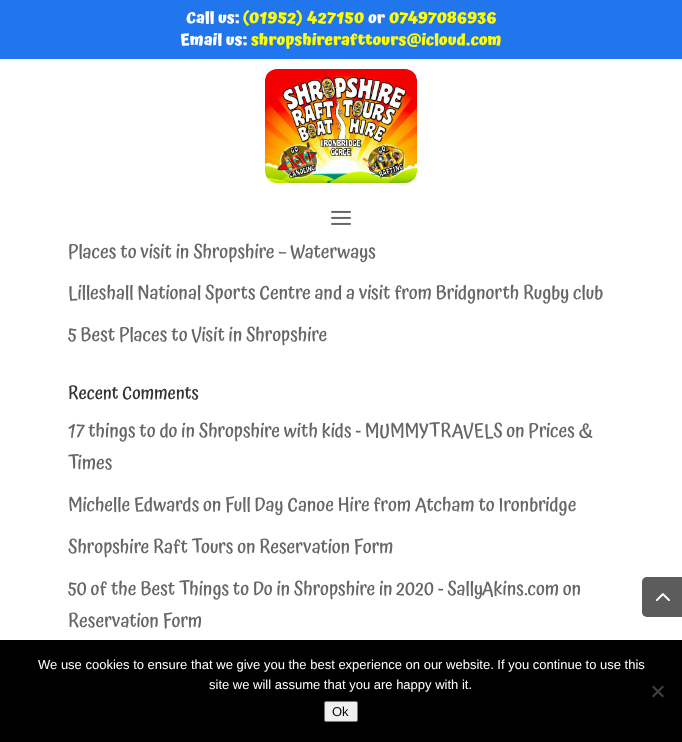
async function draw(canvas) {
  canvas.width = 682
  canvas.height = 742
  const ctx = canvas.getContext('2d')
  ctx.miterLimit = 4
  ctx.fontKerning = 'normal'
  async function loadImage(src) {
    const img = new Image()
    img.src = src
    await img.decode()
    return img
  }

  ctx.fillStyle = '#fff'
  ctx.fillRect(0, 0, 682, 742)
  ctx.fillStyle = '#2176ed'
  ctx.fillRect(0, 0, 682, 59)
  ctx.font = 'bold 16px Atma'
  ctx.fillStyle = '#fff'
  ctx.fillText('Call us:', 186, 23)
  ctx.fillStyle = '#ff0'
  ctx.fillText('(01952) 427150', 243, 23)
  ctx.fillStyle = '#fff'
  ctx.fillText('or', 368, 23)
  ctx.fillStyle = '#ff0'
  ctx.fillText('07497086936', 389, 23)
  ctx.fillStyle = '#fff'
  ctx.fillText('Email us:', 180, 45)
  ctx.fillStyle = '#ff0'
  ctx.fillText('shropshirerafttours@icloud.com', 251, 45)
  ctx.drawImage(await loadImage('image0.png'), 265, 69, 152, 114)
  ctx.drawImage(await loadImage('image1.png'), 331, 210, 20, 15)
  ctx.font = '500 19px Atma'
  ctx.fillStyle = '#666'
  ctx.fillText('Places to visit in Shropshire – Waterways', 68, 258)
  ctx.fillText('Lilleshall National Sports Centre and a visit from Bridgnorth Rugby club', 68, 299)
  ctx.fillText('5 Best Places to Visit in Shropshire', 68, 341)
  ctx.font = '500 18px Atma'
  ctx.fillStyle = '#333'
  ctx.fillText('Recent Comments', 68, 399)
  ctx.font = '500 19px Atma'
  ctx.fillStyle = '#666'
  ctx.fillText('17 things to do in Shropshire with kids - MUMMYTRAVELS on Prices &', 68, 437)
  ctx.fillText('Times', 68, 469)
  ctx.fillText('Michelle Edwards on Full Day Canoe Hire from Atcham to Ironbridge', 68, 511)
  ctx.fillText('Shropshire Raft Tours on Reservation Form', 68, 553)
  ctx.fillText('50 of the Best Things to Do in Shropshire in 2020 - SallyAkins.com on', 68, 595)
  ctx.fillText('Reservation Form', 68, 627)
  ctx.fillStyle = '#999'
  ctx.beginPath()
  ctx.roundRect(642, 577, 40, 40, [5, 0, 0, 5])
  ctx.fill()
  ctx.drawImage(await loadImage('image2.png'), 656, 593, 14, 8)
  ctx.fillStyle = '#00000066'
  ctx.beginPath()
  ctx.roundRect(642, 577, 40, 40, [5, 0, 0, 5])
  ctx.fill()
  ctx.drawImage(await loadImage('image3.png'), 655, 593, 15, 9)
  ctx.fillStyle = '#000'
  ctx.fillRect(0, 640, 682, 102)
  ctx.font = '13px Liberation Sans'
  ctx.fillStyle = '#fff'
  ctx.fillText('We use cookies to ensure that we give you the best experience on our website. If you continue to use this', 38, 669)
  ctx.fillText('site we will assume that you are happy with it.', 209, 689)
  ctx.fillStyle = '#404040'
  ctx.beginPath()
  ctx.moveTo(662.5, 685.5)
  ctx.lineTo(664, 687)
  ctx.lineTo(653.5, 697.5)
  ctx.lineTo(652, 696)
  ctx.closePath()
  ctx.fill()
  ctx.beginPath()
  ctx.moveTo(652, 687)
  ctx.lineTo(653.5, 685.5)
  ctx.lineTo(664, 696)
  ctx.lineTo(662.5, 697.5)
  ctx.closePath()
  ctx.fill()
  ctx.fillStyle = '#efefef'
  ctx.beginPath()
  ctx.roundRect(324.5, 701.5, 33, 20, 1.5)
  ctx.fill()
  ctx.strokeStyle = '#767676'
  ctx.stroke()
  ctx.fillStyle = '#000'
  ctx.fillText('Ok', 332, 716)
}

draw(document.querySelector('canvas'))
